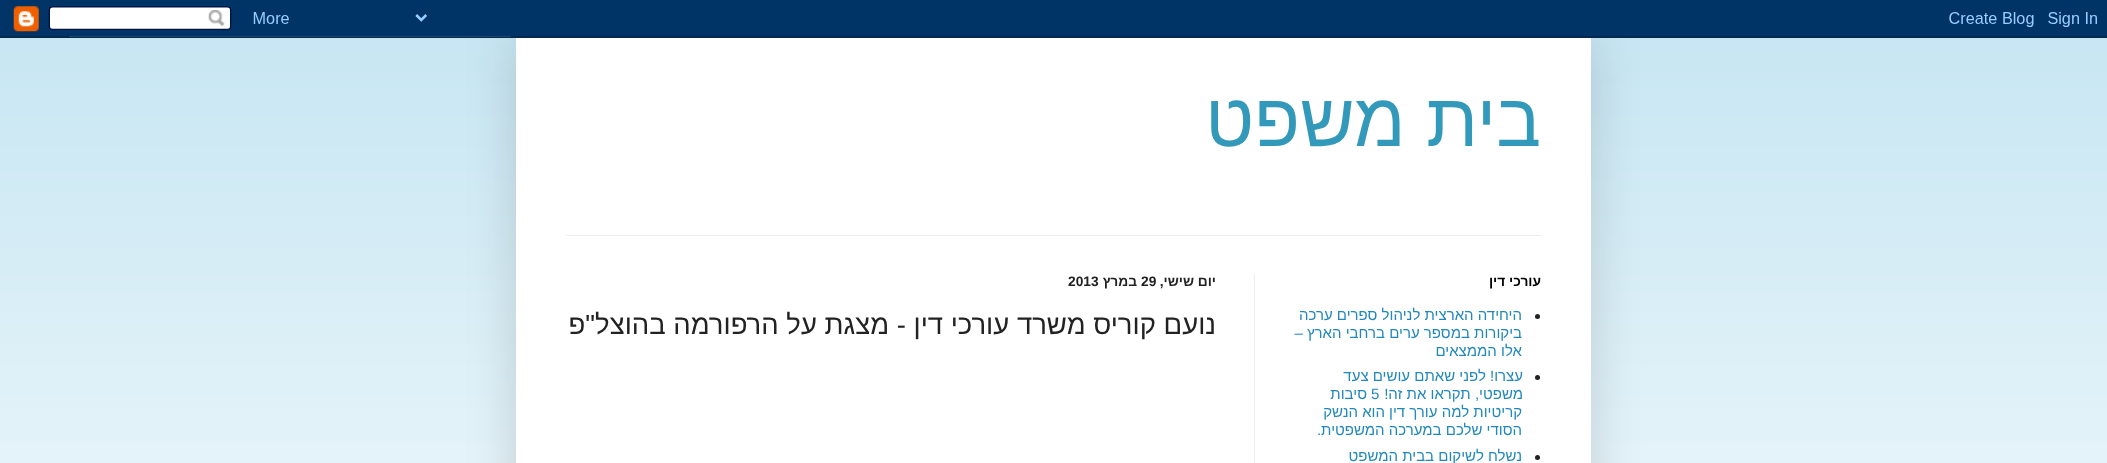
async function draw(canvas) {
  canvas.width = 2107
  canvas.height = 463
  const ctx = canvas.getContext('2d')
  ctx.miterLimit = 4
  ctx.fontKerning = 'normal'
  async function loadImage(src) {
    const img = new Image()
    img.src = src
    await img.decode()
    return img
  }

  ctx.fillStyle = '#c2e4f2'
  ctx.fillRect(0, 0, 2107, 463)
  ctx.drawImage(await loadImage('image1.png'), 0, 36, 2107, 427)
  ctx.fillStyle = '#00000026'
  ctx.filter = 'blur(25px)'
  ctx.beginPath()
  ctx.rect(516, 38, 1075, 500)
  ctx.fill()
  ctx.filter = 'none'
  ctx.drawImage(await loadImage('image0.png'), 0, 0, 2107, 38)
  ctx.fillStyle = '#fff'
  ctx.fillRect(516, 38, 1075, 425)
  ctx.direction = 'rtl'
  ctx.font = '75px Liberation Sans'
  ctx.fillStyle = '#39b'
  ctx.fillText('בית משפט', 1541, 146)
  ctx.fillStyle = '#eee'
  ctx.fillRect(566, 235, 975, 1)
  ctx.fillRect(1254, 274, 1, 189)
  ctx.font = 'bold 13.75px Liberation Sans'
  ctx.fillStyle = '#000'
  ctx.fillText('עורכי דין', 1541, 286)
  ctx.fillStyle = '#222'
  ctx.beginPath()
  ctx.arc(1537.5, 316.5, 2.5, 0, 2 * Math.PI)
  ctx.fill()
  ctx.font = '15px Liberation Sans'
  ctx.fillStyle = '#28b'
  ctx.fillText('היחידה הארצית לניהול ספרים ערכה', 1522, 320)
  ctx.fillText('ביקורות במספר ערים ברחבי הארץ –', 1522, 338)
  ctx.fillText('אלו הממצאים', 1522, 356)
  ctx.fillStyle = '#222'
  ctx.beginPath()
  ctx.arc(1537.5, 377.5, 2.5, 0, 2 * Math.PI)
  ctx.fill()
  ctx.fillStyle = '#28b'
  ctx.fillText('עצרו! לפני שאתם עושים צעד', 1523, 381)
  ctx.fillText('משפטי, תקראו את זה!', 1523, 399)
  ctx.direction = 'ltr'
  ctx.fillText('5', 1371, 399)
  ctx.direction = 'rtl'
  ctx.fillText('סיבות', 1367, 399)
  ctx.fillText('קריטיות למה עורך דין', 1522, 417)
  ctx.fillText('הוא הנשק', 1385, 417)
  ctx.fillText('הסודי שלכם במערכה המשפטית.', 1522, 435)
  ctx.fillStyle = '#222'
  ctx.beginPath()
  ctx.arc(1537.5, 457.5, 2.5, 0, 2 * Math.PI)
  ctx.fill()
  ctx.fillStyle = '#28b'
  ctx.fillText('נשלח לשיקום בבית המשפט', 1522, 461)
  ctx.font = 'bold 13.75px Liberation Sans'
  ctx.fillStyle = '#222'
  ctx.fillText('יום שישי,', 1216, 286)
  ctx.direction = 'ltr'
  ctx.fillText('29', 1141, 286)
  ctx.direction = 'rtl'
  ctx.fillText('במרץ', 1137, 286)
  ctx.direction = 'ltr'
  ctx.fillText('2013', 1068, 286)
  ctx.direction = 'rtl'
  ctx.font = '27.5px Liberation Sans'
  ctx.fillText('נועם קוריס משרד עורכי דין - מצגת על הרפורמה בהוצל"פ', 1216, 334)
}

draw(document.querySelector('canvas'))
